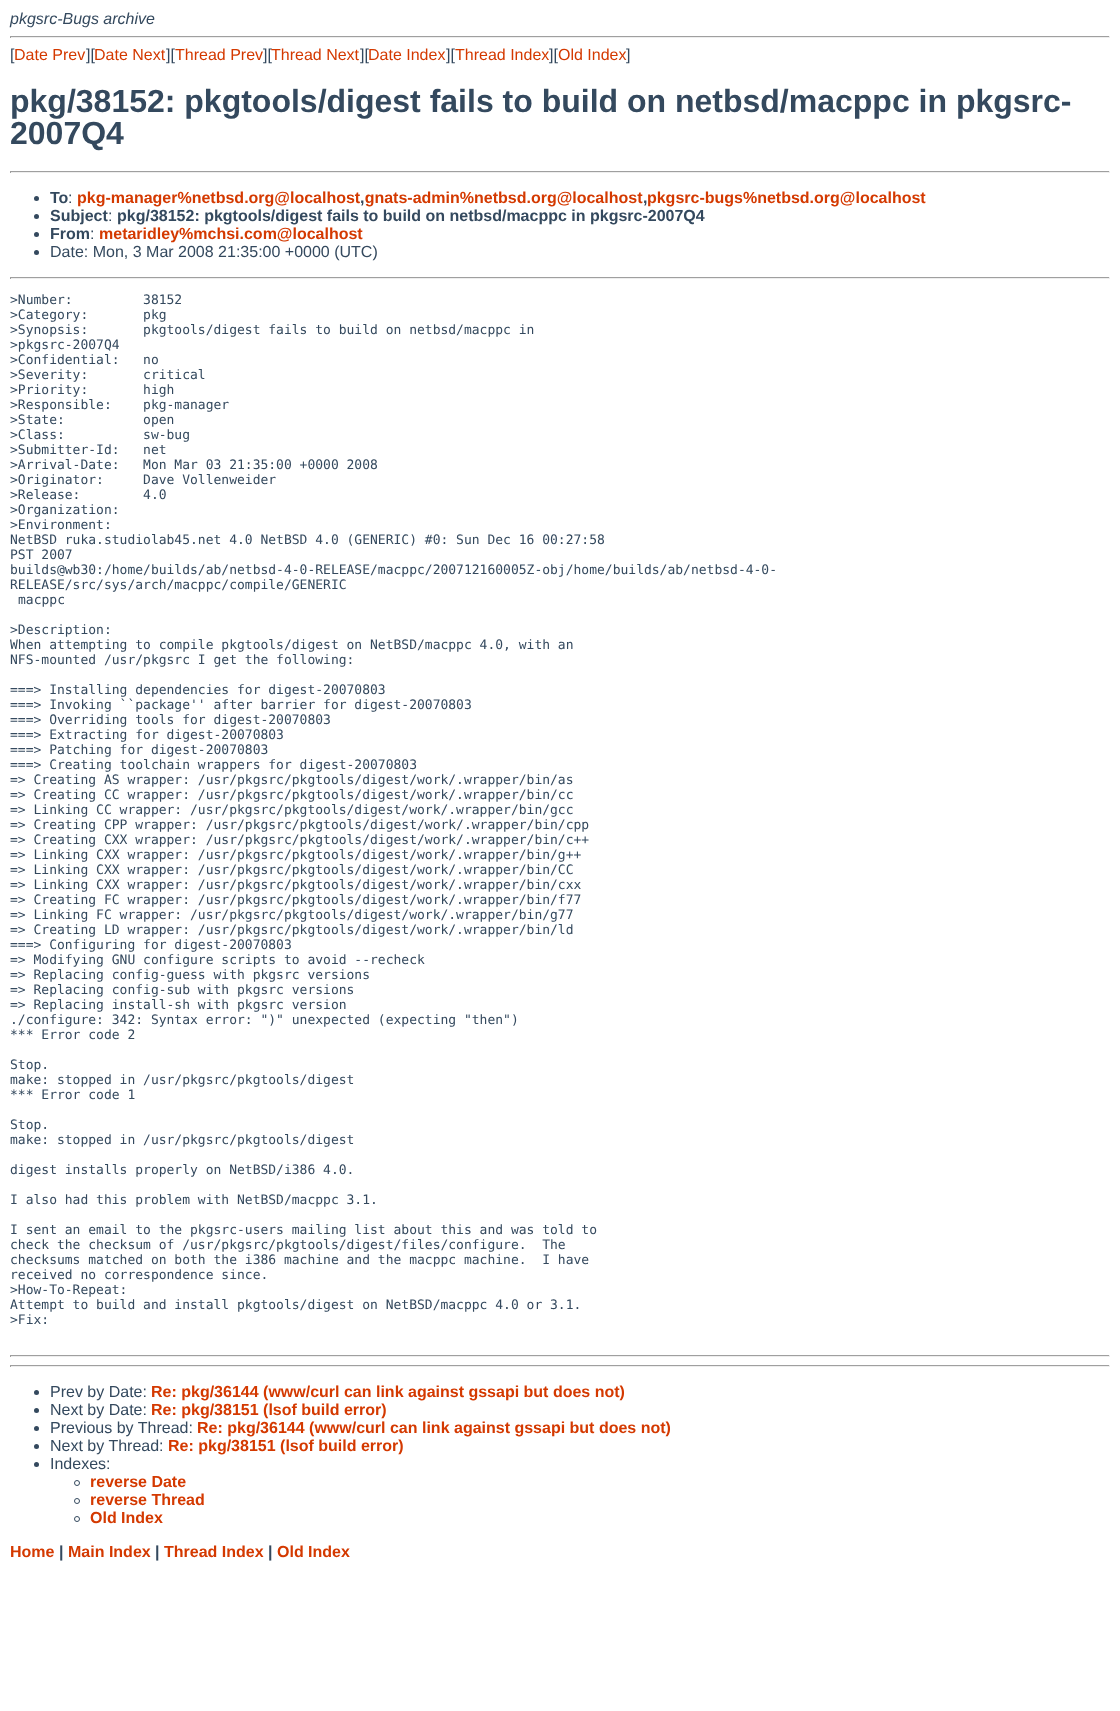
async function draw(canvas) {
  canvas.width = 1120
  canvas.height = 1711
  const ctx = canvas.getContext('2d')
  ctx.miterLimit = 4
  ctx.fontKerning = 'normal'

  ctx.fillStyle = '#fff'
  ctx.fillRect(0, 0, 1120, 1711)
  ctx.font = 'italic 16px Liberation Sans'
  ctx.fillStyle = '#34495e'
  ctx.fillText('pkgsrc-Bugs archive', 10, 24)
  ctx.fillStyle = '#9f9f9f'
  ctx.fillRect(10, 36, 1100, 1)
  ctx.fillStyle = '#eee'
  ctx.fillRect(1109, 36, 1, 2)
  ctx.fillRect(10, 37, 1100, 1)
  ctx.fillStyle = '#9f9f9f'
  ctx.fillRect(10, 36, 1, 2)
  ctx.font = '16px Liberation Sans'
  ctx.fillStyle = '#34495e'
  ctx.fillText('[', 10, 60)
  ctx.fillStyle = '#d43900'
  ctx.fillText('Date Prev', 14, 60)
  ctx.fillStyle = '#34495e'
  ctx.fillText('][', 86, 60)
  ctx.fillStyle = '#d43900'
  ctx.fillText('Date Next', 94, 60)
  ctx.fillStyle = '#34495e'
  ctx.fillText('][', 166, 60)
  ctx.fillStyle = '#d43900'
  ctx.fillText('Thread Prev', 175, 60)
  ctx.fillStyle = '#34495e'
  ctx.fillText('][', 263, 60)
  ctx.fillStyle = '#d43900'
  ctx.fillText('Thread Next', 271, 60)
  ctx.fillStyle = '#34495e'
  ctx.fillText('][', 360, 60)
  ctx.fillStyle = '#d43900'
  ctx.fillText('Date Index', 368, 60)
  ctx.fillStyle = '#34495e'
  ctx.fillText('][', 446, 60)
  ctx.fillStyle = '#d43900'
  ctx.fillText('Thread Index', 455, 60)
  ctx.fillStyle = '#34495e'
  ctx.fillText('][', 549, 60)
  ctx.fillStyle = '#d43900'
  ctx.fillText('Old Index', 558, 60)
  ctx.fillStyle = '#34495e'
  ctx.fillText(']', 626, 60)
  ctx.font = 'bold 32px Liberation Sans'
  ctx.fillText('pkg/38152: pkgtools/digest fails to build on netbsd/macppc in pkgsrc-', 10, 112)
  ctx.fillText('2007Q4', 10, 144)
  ctx.fillStyle = '#9f9f9f'
  ctx.fillRect(10, 171, 1100, 1)
  ctx.fillStyle = '#eee'
  ctx.fillRect(1109, 171, 1, 2)
  ctx.fillRect(10, 172, 1100, 1)
  ctx.fillStyle = '#9f9f9f'
  ctx.fillRect(10, 171, 1, 2)
  ctx.fillStyle = '#34495e'
  ctx.beginPath()
  ctx.arc(36.5, 198.5, 2.5, 0, 2 * Math.PI)
  ctx.fill()
  ctx.font = 'bold 16px Liberation Sans'
  ctx.fillText('To', 50, 203)
  ctx.font = '16px Liberation Sans'
  ctx.fillText(':', 68, 203)
  ctx.font = 'bold 16px Liberation Sans'
  ctx.fillStyle = '#d43900'
  ctx.fillText('pkg-manager%netbsd.org@localhost gnats-admin%netbsd.org@localhost pkgsrc-bugs%netbsd.org@localhost', 77, 203)
  ctx.fillStyle = '#34495e'
  ctx.fillText(',', 360, 203)
  ctx.fillText(',', 643, 203)
  ctx.beginPath()
  ctx.arc(36.5, 216.5, 2.5, 0, 2 * Math.PI)
  ctx.fill()
  ctx.fillText('Subject', 50, 221)
  ctx.font = '16px Liberation Sans'
  ctx.fillText(':', 108, 221)
  ctx.font = 'bold 16px Liberation Sans'
  ctx.fillText('pkg/38152: pkgtools/digest fails to build on netbsd/macppc in pkgsrc-2007Q4', 117, 221)
  ctx.beginPath()
  ctx.arc(36.5, 234.5, 2.5, 0, 2 * Math.PI)
  ctx.fill()
  ctx.fillText('From', 50, 239)
  ctx.font = '16px Liberation Sans'
  ctx.fillText(':', 90, 239)
  ctx.font = 'bold 16px Liberation Sans'
  ctx.fillStyle = '#d43900'
  ctx.fillText('metaridley%mchsi.com@localhost', 99, 239)
  ctx.fillStyle = '#34495e'
  ctx.beginPath()
  ctx.arc(36.5, 252.5, 2.5, 0, 2 * Math.PI)
  ctx.fill()
  ctx.font = '16px Liberation Sans'
  ctx.fillText('Date: Mon, 3 Mar 2008 21:35:00 +0000 (UTC)', 50, 257)
  ctx.fillStyle = '#9f9f9f'
  ctx.fillRect(10, 277, 1100, 1)
  ctx.fillStyle = '#eee'
  ctx.fillRect(1109, 277, 1, 2)
  ctx.fillRect(10, 278, 1100, 1)
  ctx.fillStyle = '#9f9f9f'
  ctx.fillRect(10, 277, 1, 2)
  ctx.font = '13px DejaVu Sans Mono'
  ctx.fillStyle = '#34495e'
  ctx.fillText('>Number:         38152', 10, 304)
  ctx.fillText('>Category:       pkg', 10, 319)
  ctx.fillText('>Synopsis:       pkgtools/digest fails to build on netbsd/macppc in', 10, 334)
  ctx.fillText('>pkgsrc-2007Q4', 10, 349)
  ctx.fillText('>Confidential:   no', 10, 364)
  ctx.fillText('>Severity:       critical', 10, 379)
  ctx.fillText('>Priority:       high', 10, 394)
  ctx.fillText('>Responsible:    pkg-manager', 10, 409)
  ctx.fillText('>State:          open', 10, 424)
  ctx.fillText('>Class:          sw-bug', 10, 439)
  ctx.fillText('>Submitter-Id:   net', 10, 454)
  ctx.fillText('>Arrival-Date:   Mon Mar 03 21:35:00 +0000 2008', 10, 469)
  ctx.fillText('>Originator:     Dave Vollenweider', 10, 484)
  ctx.fillText('>Release:        4.0', 10, 499)
  ctx.fillText('>Organization:', 10, 514)
  ctx.fillText('>Environment:', 10, 529)
  ctx.fillText('NetBSD ruka.studiolab45.net 4.0 NetBSD 4.0 (GENERIC) #0: Sun Dec 16 00:27:58', 10, 544)
  ctx.fillText('PST 2007', 10, 559)
  ctx.fillText('builds@wb30:/home/builds/ab/netbsd-4-0-RELEASE/macppc/200712160005Z-obj/home/builds/ab/netbsd-4-0-', 10, 574)
  ctx.fillText('RELEASE/src/sys/arch/macppc/compile/GENERIC', 10, 589)
  ctx.fillText('macppc', 18, 604)
  ctx.fillText('>Description:', 10, 634)
  ctx.fillText('When attempting to compile pkgtools/digest on NetBSD/macppc 4.0, with an', 10, 649)
  ctx.fillText('NFS-mounted /usr/pkgsrc I get the following:', 10, 664)
  ctx.fillText('===> Installing dependencies for digest-20070803', 10, 694)
  ctx.fillText('===> Invoking ``package\'\' after barrier for digest-20070803', 10, 709)
  ctx.fillText('===> Overriding tools for digest-20070803', 10, 724)
  ctx.fillText('===> Extracting for digest-20070803', 10, 739)
  ctx.fillText('===> Patching for digest-20070803', 10, 754)
  ctx.fillText('===> Creating toolchain wrappers for digest-20070803', 10, 769)
  ctx.fillText('=> Creating AS wrapper: /usr/pkgsrc/pkgtools/digest/work/.wrapper/bin/as', 10, 784)
  ctx.fillText('=> Creating CC wrapper: /usr/pkgsrc/pkgtools/digest/work/.wrapper/bin/cc', 10, 799)
  ctx.fillText('=> Linking CC wrapper: /usr/pkgsrc/pkgtools/digest/work/.wrapper/bin/gcc', 10, 814)
  ctx.fillText('=> Creating CPP wrapper: /usr/pkgsrc/pkgtools/digest/work/.wrapper/bin/cpp', 10, 829)
  ctx.fillText('=> Creating CXX wrapper: /usr/pkgsrc/pkgtools/digest/work/.wrapper/bin/c++', 10, 844)
  ctx.fillText('=> Linking CXX wrapper: /usr/pkgsrc/pkgtools/digest/work/.wrapper/bin/g++', 10, 859)
  ctx.fillText('=> Linking CXX wrapper: /usr/pkgsrc/pkgtools/digest/work/.wrapper/bin/CC', 10, 874)
  ctx.fillText('=> Linking CXX wrapper: /usr/pkgsrc/pkgtools/digest/work/.wrapper/bin/cxx', 10, 889)
  ctx.fillText('=> Creating FC wrapper: /usr/pkgsrc/pkgtools/digest/work/.wrapper/bin/f77', 10, 904)
  ctx.fillText('=> Linking FC wrapper: /usr/pkgsrc/pkgtools/digest/work/.wrapper/bin/g77', 10, 919)
  ctx.fillText('=> Creating LD wrapper: /usr/pkgsrc/pkgtools/digest/work/.wrapper/bin/ld', 10, 934)
  ctx.fillText('===> Configuring for digest-20070803', 10, 949)
  ctx.fillText('=> Modifying GNU configure scripts to avoid --recheck', 10, 964)
  ctx.fillText('=> Replacing config-guess with pkgsrc versions', 10, 979)
  ctx.fillText('=> Replacing config-sub with pkgsrc versions', 10, 994)
  ctx.fillText('=> Replacing install-sh with pkgsrc version', 10, 1009)
  ctx.fillText('./configure: 342: Syntax error: ")" unexpected (expecting "then")', 10, 1024)
  ctx.fillText('*** Error code 2', 10, 1039)
  ctx.fillText('Stop.', 10, 1069)
  ctx.fillText('make: stopped in /usr/pkgsrc/pkgtools/digest', 10, 1084)
  ctx.fillText('*** Error code 1', 10, 1099)
  ctx.fillText('Stop.', 10, 1129)
  ctx.fillText('make: stopped in /usr/pkgsrc/pkgtools/digest', 10, 1144)
  ctx.fillText('digest installs properly on NetBSD/i386 4.0.', 10, 1174)
  ctx.fillText('I also had this problem with NetBSD/macppc 3.1.', 10, 1204)
  ctx.fillText('I sent an email to the pkgsrc-users mailing list about this and was told to', 10, 1234)
  ctx.fillText('check the checksum of /usr/pkgsrc/pkgtools/digest/files/configure.  The', 10, 1249)
  ctx.fillText('checksums matched on both the i386 machine and the macppc machine.  I have', 10, 1264)
  ctx.fillText('received no correspondence since.', 10, 1279)
  ctx.fillText('>How-To-Repeat:', 10, 1294)
  ctx.fillText('Attempt to build and install pkgtools/digest on NetBSD/macppc 4.0 or 3.1.', 10, 1309)
  ctx.fillText('>Fix:', 10, 1324)
  ctx.fillStyle = '#9f9f9f'
  ctx.fillRect(10, 1355, 1100, 1)
  ctx.fillStyle = '#eee'
  ctx.fillRect(1109, 1355, 1, 2)
  ctx.fillRect(10, 1356, 1100, 1)
  ctx.fillStyle = '#9f9f9f'
  ctx.fillRect(10, 1355, 1, 2)
  ctx.fillRect(10, 1365, 1100, 1)
  ctx.fillStyle = '#eee'
  ctx.fillRect(1109, 1365, 1, 2)
  ctx.fillRect(10, 1366, 1100, 1)
  ctx.fillStyle = '#9f9f9f'
  ctx.fillRect(10, 1365, 1, 2)
  ctx.fillStyle = '#34495e'
  ctx.beginPath()
  ctx.arc(36.5, 1392.5, 2.5, 0, 2 * Math.PI)
  ctx.fill()
  ctx.font = '16px Liberation Sans'
  ctx.fillText('Prev by Date:', 50, 1397)
  ctx.font = 'bold 16px Liberation Sans'
  ctx.fillStyle = '#d43900'
  ctx.fillText('Re: pkg/36144 (www/curl can link against gssapi but does not)', 151, 1397)
  ctx.fillStyle = '#34495e'
  ctx.beginPath()
  ctx.arc(36.5, 1410.5, 2.5, 0, 2 * Math.PI)
  ctx.fill()
  ctx.font = '16px Liberation Sans'
  ctx.fillText('Next by Date:', 50, 1415)
  ctx.font = 'bold 16px Liberation Sans'
  ctx.fillStyle = '#d43900'
  ctx.fillText('Re: pkg/38151 (lsof build error)', 151, 1415)
  ctx.fillStyle = '#34495e'
  ctx.beginPath()
  ctx.arc(36.5, 1428.5, 2.5, 0, 2 * Math.PI)
  ctx.fill()
  ctx.font = '16px Liberation Sans'
  ctx.fillText('Previous by Thread:', 50, 1433)
  ctx.font = 'bold 16px Liberation Sans'
  ctx.fillStyle = '#d43900'
  ctx.fillText('Re: pkg/36144 (www/curl can link against gssapi but does not)', 197, 1433)
  ctx.fillStyle = '#34495e'
  ctx.beginPath()
  ctx.arc(36.5, 1446.5, 2.5, 0, 2 * Math.PI)
  ctx.fill()
  ctx.font = '16px Liberation Sans'
  ctx.fillText('Next by Thread:', 50, 1451)
  ctx.font = 'bold 16px Liberation Sans'
  ctx.fillStyle = '#d43900'
  ctx.fillText('Re: pkg/38151 (lsof build error)', 168, 1451)
  ctx.fillStyle = '#34495e'
  ctx.beginPath()
  ctx.arc(36.5, 1464.5, 2.5, 0, 2 * Math.PI)
  ctx.fill()
  ctx.font = '16px Liberation Sans'
  ctx.fillText('Indexes:', 50, 1469)
  ctx.beginPath()
  ctx.arc(77, 1483, 2.5, 0, 2 * Math.PI)
  ctx.strokeStyle = '#34495e'
  ctx.stroke()
  ctx.font = 'bold 16px Liberation Sans'
  ctx.fillStyle = '#d43900'
  ctx.fillText('reverse Date', 90, 1487)
  ctx.beginPath()
  ctx.arc(77, 1501, 2.5, 0, 2 * Math.PI)
  ctx.stroke()
  ctx.fillText('reverse Thread', 90, 1505)
  ctx.beginPath()
  ctx.arc(77, 1519, 2.5, 0, 2 * Math.PI)
  ctx.stroke()
  ctx.fillText('Old Index', 90, 1523)
  ctx.fillText('Home', 10, 1557)
  ctx.fillStyle = '#34495e'
  ctx.fillText('|', 59, 1557)
  ctx.fillStyle = '#d43900'
  ctx.fillText('Main Index', 68, 1557)
  ctx.fillStyle = '#34495e'
  ctx.fillText('|', 155, 1557)
  ctx.fillStyle = '#d43900'
  ctx.fillText('Thread Index', 164, 1557)
  ctx.fillStyle = '#34495e'
  ctx.fillText('|', 268, 1557)
  ctx.fillStyle = '#d43900'
  ctx.fillText('Old Index', 277, 1557)
}

draw(document.querySelector('canvas'))
